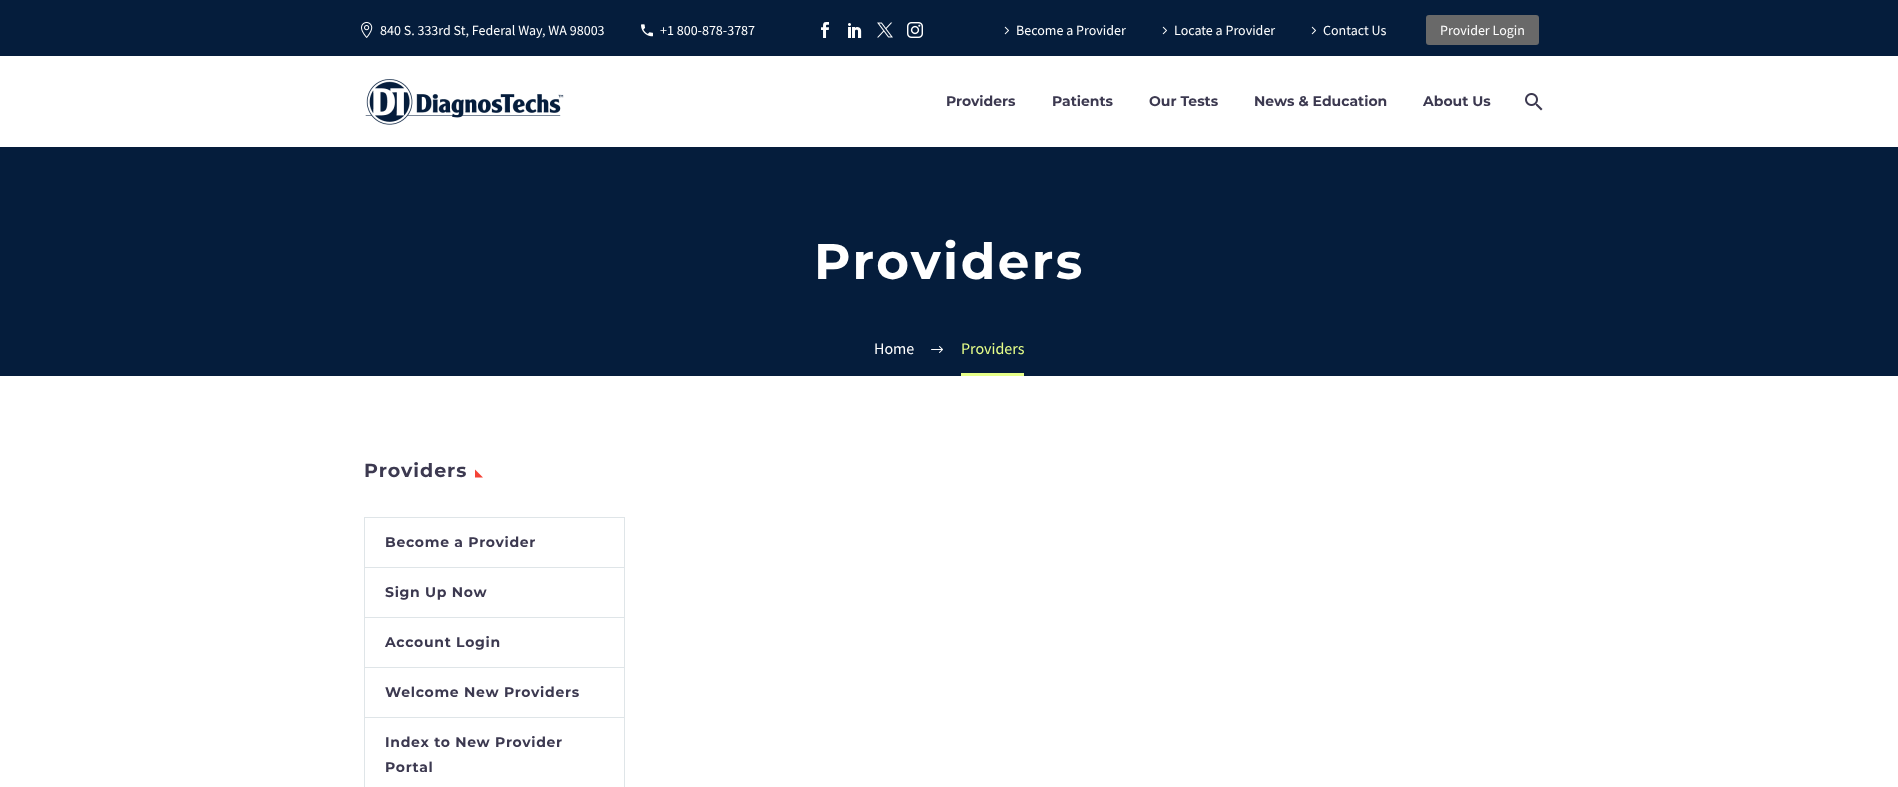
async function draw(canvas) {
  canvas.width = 1898
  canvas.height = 787
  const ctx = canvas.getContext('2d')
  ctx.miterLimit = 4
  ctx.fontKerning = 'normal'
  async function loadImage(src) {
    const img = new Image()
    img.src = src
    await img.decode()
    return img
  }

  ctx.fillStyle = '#fff'
  ctx.fillRect(0, 0, 1898, 787)
  ctx.fillStyle = '#051d3c'
  ctx.fillRect(0, 0, 1898, 56)
  ctx.drawImage(await loadImage('image0.png'), 361, 22, 12, 16)
  ctx.font = '14px Source Sans Pro'
  ctx.fillStyle = '#fff'
  ctx.fillText('840 S. 333rd St, Federal Way, WA 98003', 380, 35)
  ctx.drawImage(await loadImage('image1.png'), 641, 24, 12, 13)
  ctx.fillText('+1 800-878-3787', 660, 35)
  ctx.drawImage(await loadImage('image2.png'), 821, 22, 8, 16)
  ctx.drawImage(await loadImage('image3.png'), 848, 23, 14, 15)
  ctx.drawImage(await loadImage('image4.png'), 877, 22, 16, 16)
  ctx.drawImage(await loadImage('image5.png'), 907, 22, 16, 16)
  ctx.drawImage(await loadImage('image6.png'), 1004, 26, 5, 9)
  ctx.fillText('Become a Provider', 1016, 35)
  ctx.drawImage(await loadImage('image6.png'), 1162, 26, 5, 9)
  ctx.fillText('Locate a Provider', 1174, 35)
  ctx.drawImage(await loadImage('image6.png'), 1311, 26, 5, 9)
  ctx.fillText('Contact Us', 1323, 35)
  ctx.fillStyle = '#696969'
  ctx.beginPath()
  ctx.roundRect(1426, 15, 113, 30, 3)
  ctx.fill()
  ctx.fillStyle = '#fff'
  ctx.fillText('Provider Login', 1440, 35)
  ctx.drawImage(await loadImage('image7.png'), 365, 79, 199, 46)
  ctx.font = 'bold 14px Montserrat'
  ctx.fillStyle = '#3c3950'
  ctx.fillText('Providers', 946, 106)
  ctx.fillText('Patients', 1052, 106)
  ctx.fillText('Our Tests', 1149, 106)
  ctx.fillText('News & Education', 1254, 106)
  ctx.fillText('About Us', 1423, 106)
  ctx.drawImage(await loadImage('image8.png'), 1525, 93, 18, 18)
  ctx.fillStyle = '#051d3c'
  ctx.fillRect(0, 147, 1898, 229)
  ctx.letterSpacing = '2.5px'
  ctx.font = 'bold 50px Montserrat'
  ctx.fillStyle = '#fff'
  ctx.fillText('Providers', 814, 279)
  ctx.letterSpacing = '0px'
  ctx.font = '16px Source Sans Pro'
  ctx.fillText('Home', 874, 354)
  ctx.drawImage(await loadImage('image9.png'), 931, 346, 12, 7)
  ctx.fillStyle = '#e7ff89'
  ctx.fillRect(961, 373, 63, 3)
  ctx.fillText('Providers', 961, 354)
  ctx.letterSpacing = '1px'
  ctx.font = 'bold 19px Montserrat'
  ctx.fillStyle = '#3c3950'
  ctx.fillText('Providers', 364, 477)
  ctx.fillStyle = '#f44336'
  ctx.beginPath()
  ctx.moveTo(475, 469.5)
  ctx.lineTo(475, 477.5)
  ctx.lineTo(483, 477.5)
  ctx.closePath()
  ctx.fill()
  ctx.fillStyle = '#dfe5e8'
  ctx.fillRect(624, 517, 1, 270)
  ctx.fillRect(364, 517, 1, 270)
  ctx.fillRect(365, 517, 259, 1)
  ctx.letterSpacing = '0.7px'
  ctx.font = 'bold 14px Montserrat'
  ctx.fillStyle = '#3c3950'
  ctx.fillText('Become a Provider', 385, 547)
  ctx.fillStyle = '#dfe5e8'
  ctx.fillRect(365, 567, 259, 1)
  ctx.fillStyle = '#3c3950'
  ctx.fillText('Sign Up Now', 385, 597)
  ctx.fillStyle = '#dfe5e8'
  ctx.fillRect(365, 617, 259, 1)
  ctx.fillStyle = '#3c3950'
  ctx.fillText('Account Login', 385, 647)
  ctx.fillStyle = '#dfe5e8'
  ctx.fillRect(365, 667, 259, 1)
  ctx.fillStyle = '#3c3950'
  ctx.fillText('Welcome New Providers', 385, 697)
  ctx.fillStyle = '#dfe5e8'
  ctx.fillRect(365, 717, 259, 1)
  ctx.fillStyle = '#3c3950'
  ctx.fillText('Index to New Provider', 385, 747)
  ctx.fillText('Portal', 385, 772)
}

draw(document.querySelector('canvas'))
